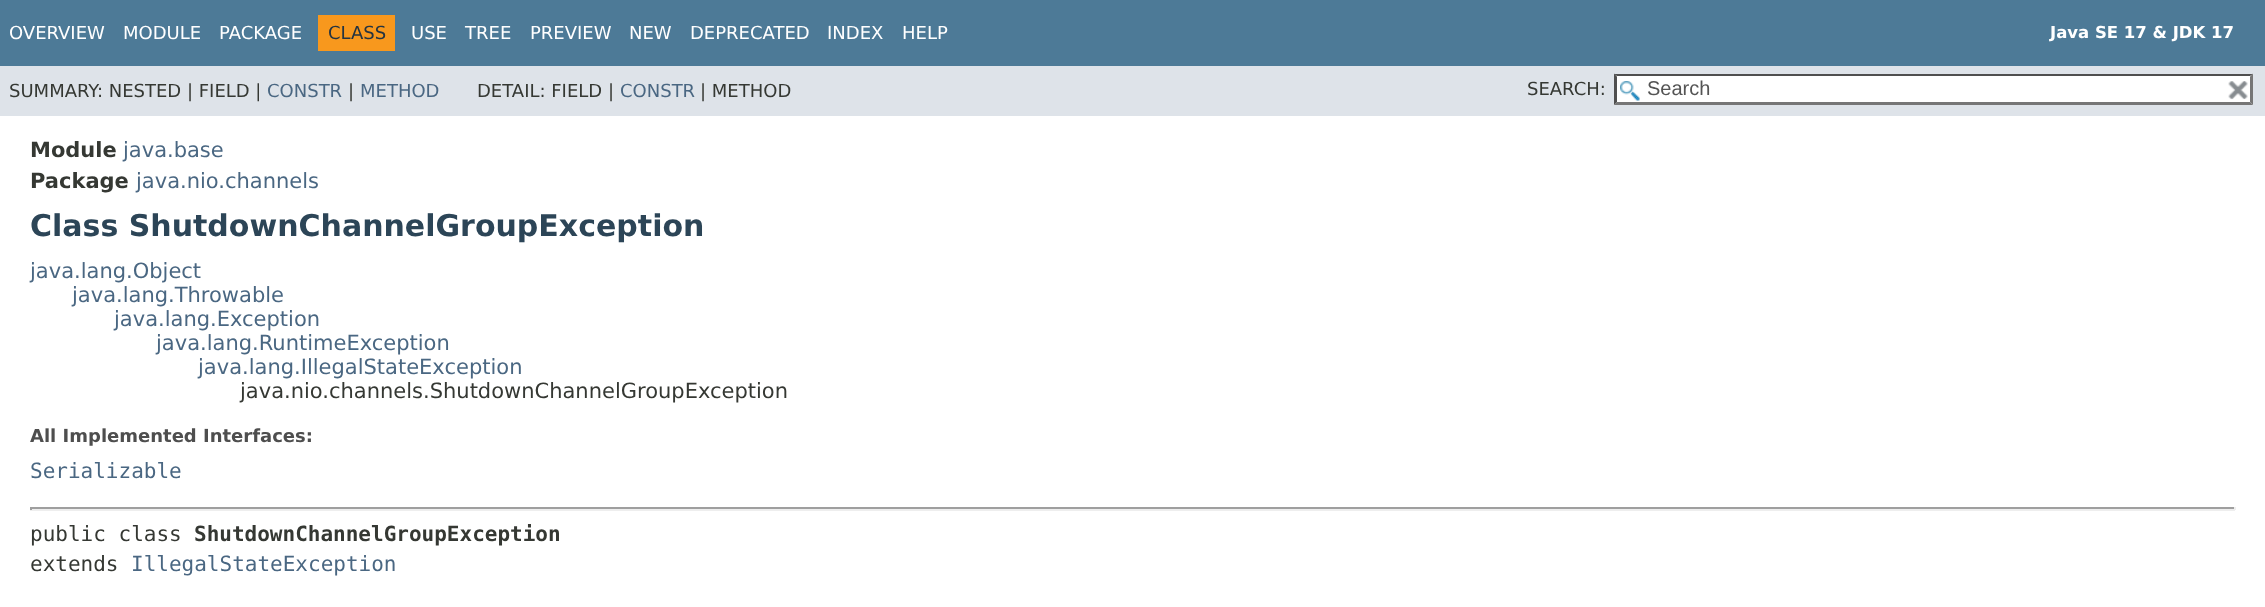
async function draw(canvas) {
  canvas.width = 2265
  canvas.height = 607
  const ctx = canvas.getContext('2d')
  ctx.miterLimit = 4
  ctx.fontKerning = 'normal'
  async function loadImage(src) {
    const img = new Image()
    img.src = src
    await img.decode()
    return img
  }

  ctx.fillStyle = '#fff'
  ctx.fillRect(0, 0, 2265, 607)
  ctx.fillStyle = '#4d7a97'
  ctx.fillRect(0, 0, 2265, 66)
  ctx.font = '18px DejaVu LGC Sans'
  ctx.fillStyle = '#fff'
  ctx.fillText('OVERVIEW', 9, 39)
  ctx.fillText('MODULE', 123, 39)
  ctx.fillText('PACKAGE', 219, 39)
  ctx.fillStyle = '#f8981d'
  ctx.fillRect(318, 15, 77, 36)
  ctx.fillStyle = '#253441'
  ctx.fillText('CLASS', 328, 39)
  ctx.fillStyle = '#fff'
  ctx.fillText('USE', 411, 39)
  ctx.fillText('TREE', 465, 39)
  ctx.fillText('PREVIEW', 530, 39)
  ctx.fillText('NEW', 629, 39)
  ctx.fillText('DEPRECATED', 690, 39)
  ctx.fillText('INDEX', 827, 39)
  ctx.fillText('HELP', 902, 39)
  ctx.font = 'bold 16.5px DejaVu LGC Sans'
  ctx.fillText('Java SE 17 & JDK 17', 2050, 38)
  ctx.fillStyle = '#dee3e9'
  ctx.fillRect(0, 66, 2265, 50)
  ctx.font = '18px DejaVu LGC Sans'
  ctx.fillStyle = '#353833'
  ctx.fillText('SUMMARY: NESTED | FIELD |', 9, 97)
  ctx.fillStyle = '#4a6782'
  ctx.fillText('CONSTR', 267, 97)
  ctx.fillStyle = '#353833'
  ctx.fillText('|', 348, 97)
  ctx.fillStyle = '#4a6782'
  ctx.fillText('METHOD', 360, 97)
  ctx.fillStyle = '#353833'
  ctx.fillText('DETAIL: FIELD |', 477, 97)
  ctx.fillStyle = '#4a6782'
  ctx.fillText('CONSTR', 620, 97)
  ctx.fillStyle = '#353833'
  ctx.fillText('| METHOD', 700, 97)
  ctx.fillText('SEARCH:', 1527, 95)
  ctx.fillStyle = '#fff'
  ctx.fillRect(1614, 74, 639, 31)
  ctx.drawImage(await loadImage('image0.png'), 1620, 81, 20, 20)
  ctx.fillStyle = '#4f4f4f'
  ctx.beginPath()
  ctx.moveTo(1614, 74)
  ctx.lineTo(2253, 74)
  ctx.lineTo(2250, 76)
  ctx.lineTo(1617, 76)
  ctx.closePath()
  ctx.fill()
  ctx.fillStyle = '#767676'
  ctx.beginPath()
  ctx.moveTo(2253, 73.5)
  ctx.lineTo(2253, 105)
  ctx.lineTo(2250, 102)
  ctx.lineTo(2250, 76.5)
  ctx.closePath()
  ctx.fill()
  ctx.beginPath()
  ctx.moveTo(2253, 105)
  ctx.lineTo(1614, 105)
  ctx.lineTo(1617, 102)
  ctx.lineTo(2250, 102)
  ctx.closePath()
  ctx.fill()
  ctx.fillStyle = '#4f4f4f'
  ctx.beginPath()
  ctx.moveTo(1614, 105)
  ctx.lineTo(1614, 73.5)
  ctx.lineTo(1617, 76.5)
  ctx.lineTo(1617, 102)
  ctx.closePath()
  ctx.fill()
  ctx.font = '20px Liberation Sans'
  ctx.fillStyle = '#545454'
  ctx.fillText('Search', 1647, 95)
  ctx.drawImage(await loadImage('image1.png'), 2228, 81, 20, 19)
  ctx.font = 'bold 21px DejaVu LGC Sans'
  ctx.fillStyle = '#353833'
  ctx.fillText('Module', 30, 157)
  ctx.font = '21px DejaVu LGC Sans'
  ctx.fillStyle = '#4a6782'
  ctx.fillText('java.base', 123, 157)
  ctx.font = 'bold 21px DejaVu LGC Sans'
  ctx.fillStyle = '#353833'
  ctx.fillText('Package', 30, 188)
  ctx.font = '21px DejaVu LGC Sans'
  ctx.fillStyle = '#4a6782'
  ctx.fillText('java.nio.channels', 136, 188)
  ctx.font = 'bold 30px DejaVu LGC Sans'
  ctx.fillStyle = '#2c4557'
  ctx.fillText('Class ShutdownChannelGroupException', 30, 236)
  ctx.font = '21px DejaVu LGC Sans'
  ctx.fillStyle = '#4a6782'
  ctx.fillText('java.lang.Object', 30, 278)
  ctx.fillText('java.lang.Throwable', 72, 302)
  ctx.fillText('java.lang.Exception', 114, 326)
  ctx.fillText('java.lang.RuntimeException', 156, 350)
  ctx.fillText('java.lang.IllegalStateException', 198, 374)
  ctx.fillStyle = '#353833'
  ctx.fillText('java.nio.channels.ShutdownChannelGroupException', 240, 398)
  ctx.font = 'bold 18px DejaVu LGC Sans'
  ctx.fillStyle = '#4e4e4e'
  ctx.fillText('All Implemented Interfaces:', 30, 442)
  ctx.font = '21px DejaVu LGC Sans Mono'
  ctx.fillStyle = '#4a6782'
  ctx.fillText('Serializable', 30, 478)
  ctx.fillStyle = '#9f9f9f'
  ctx.fillRect(30, 507, 2205, 2)
  ctx.fillStyle = '#eee'
  ctx.fillRect(2234, 507, 2, 3)
  ctx.fillRect(30, 509, 2205, 2)
  ctx.fillStyle = '#9f9f9f'
  ctx.fillRect(30, 507, 2, 3)
  ctx.fillStyle = '#353833'
  ctx.fillText('public class', 30, 541)
  ctx.font = 'bold 21px DejaVu LGC Sans Mono'
  ctx.fillText('ShutdownChannelGroupException', 194, 541)
  ctx.font = '21px DejaVu LGC Sans Mono'
  ctx.fillText('extends', 30, 571)
  ctx.fillStyle = '#4a6782'
  ctx.fillText('IllegalStateException', 131, 571)
}

draw(document.querySelector('canvas'))
